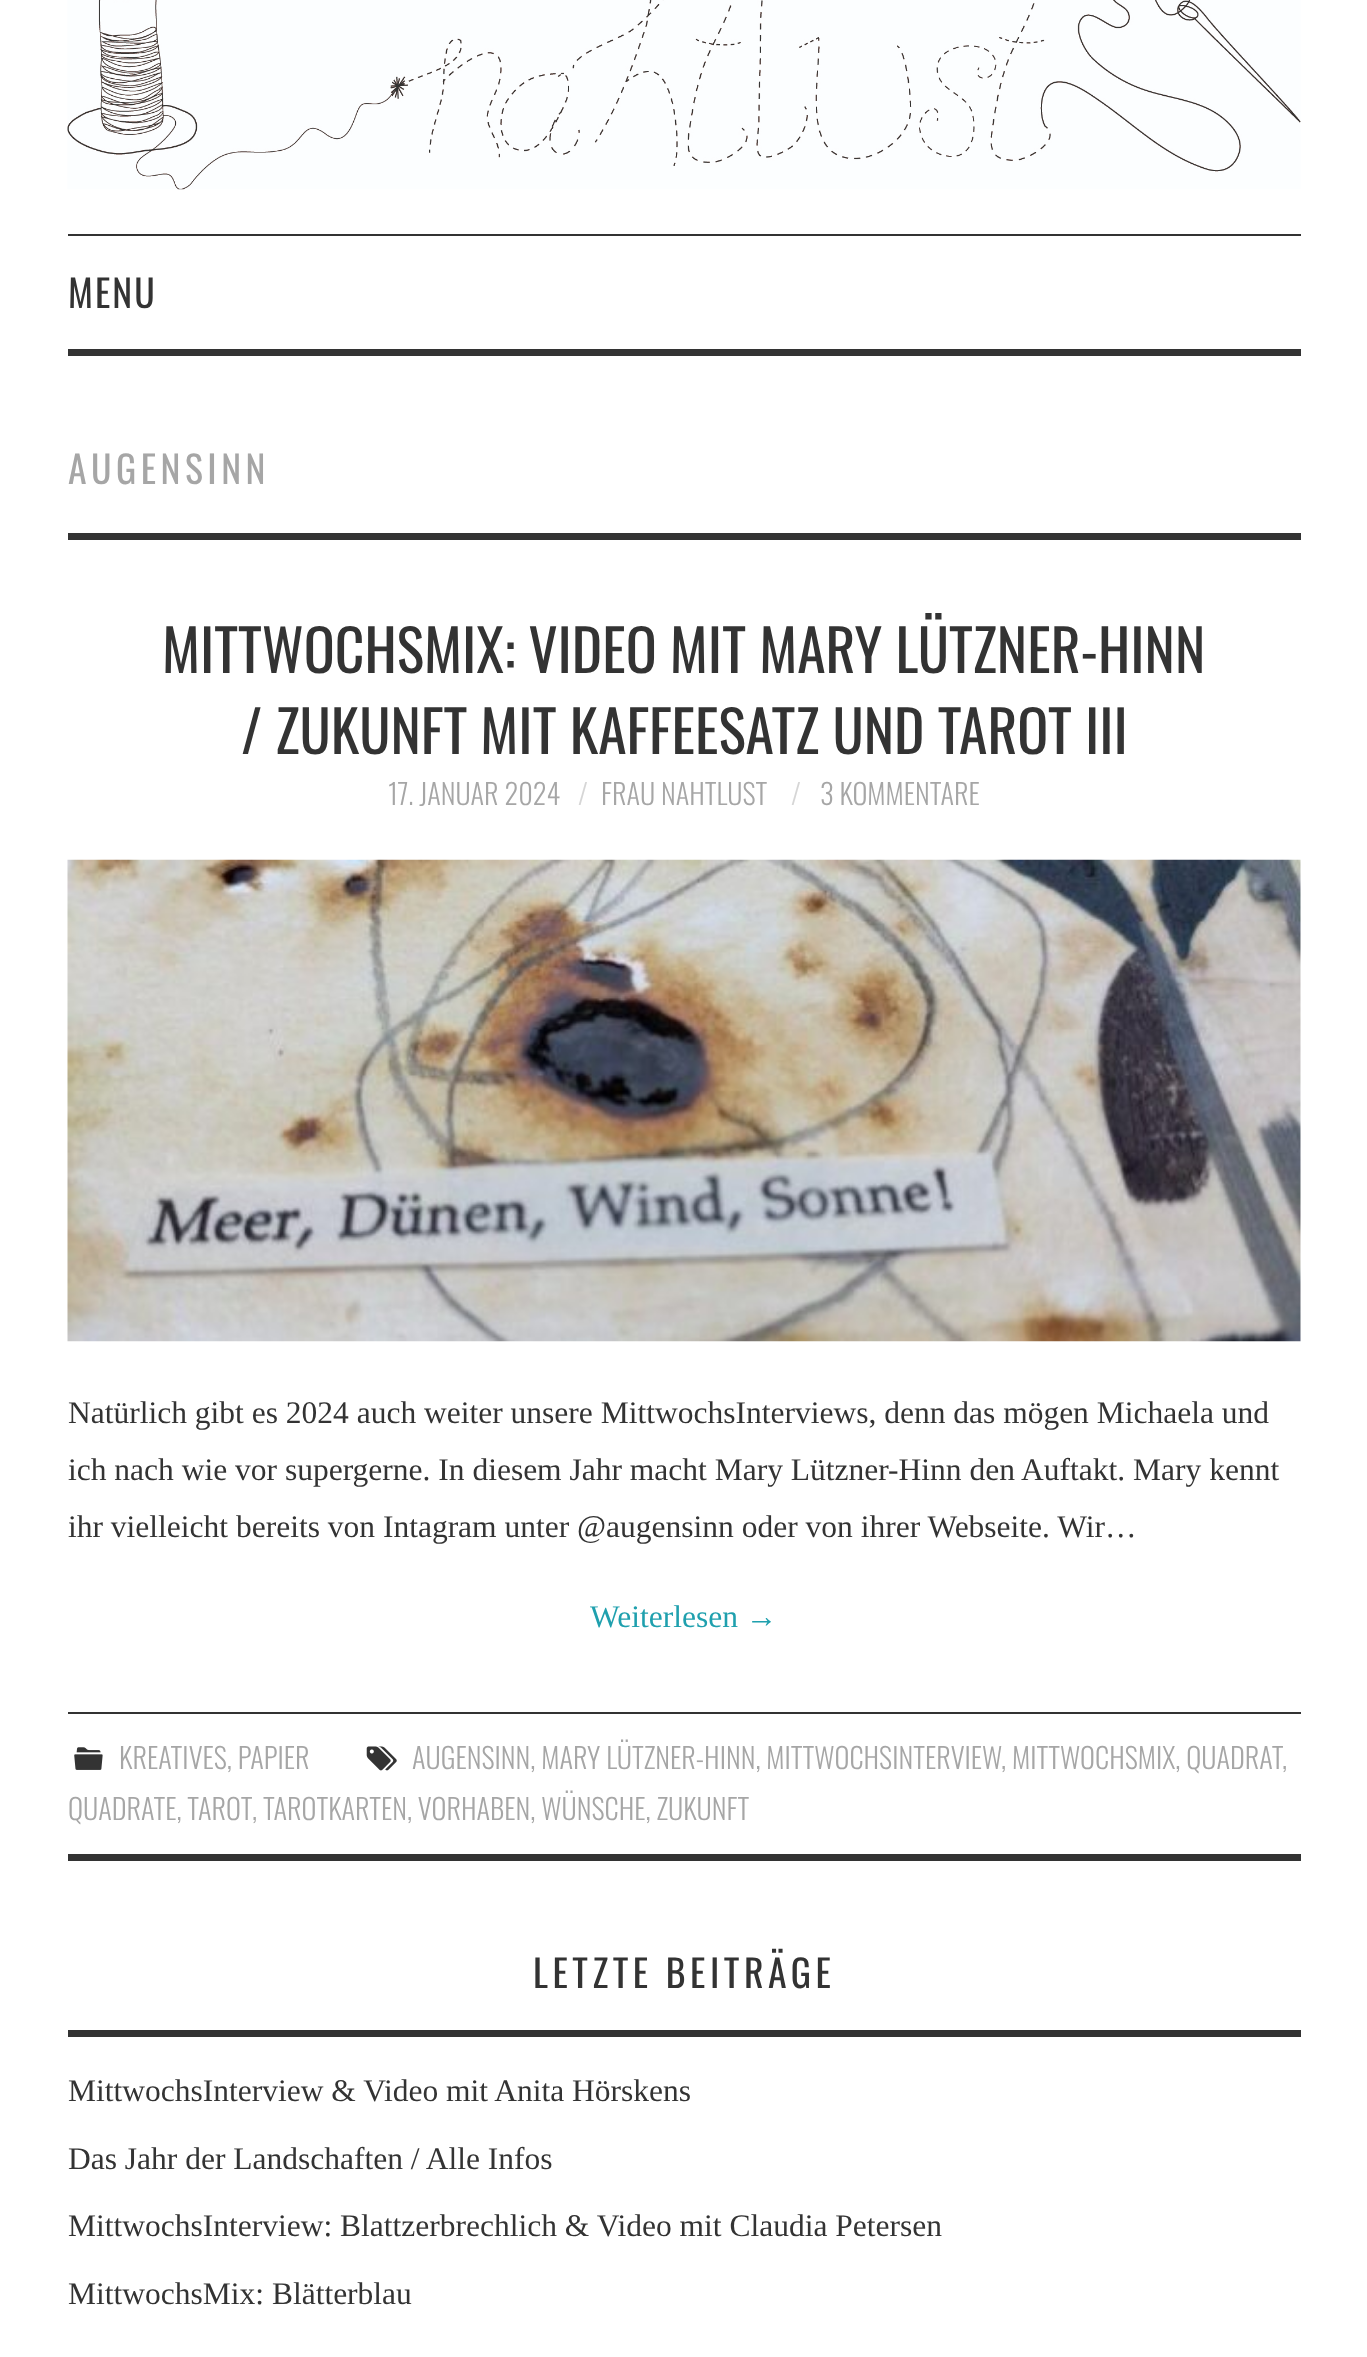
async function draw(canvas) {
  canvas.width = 1367
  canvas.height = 2357
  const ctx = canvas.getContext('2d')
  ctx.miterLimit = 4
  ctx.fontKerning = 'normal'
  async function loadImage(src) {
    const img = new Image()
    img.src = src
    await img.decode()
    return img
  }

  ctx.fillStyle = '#fff'
  ctx.fillRect(0, 0, 1367, 2357)
  ctx.drawImage(await loadImage('image0.png'), 67, 0, 1234, 190)
  ctx.fillStyle = '#333'
  ctx.fillRect(68, 234, 1233, 2)
  ctx.fillRect(68, 349, 1233, 7)
  ctx.letterSpacing = '2px'
  ctx.font = '37.75px Oswald'
  ctx.fillText('MENU', 68, 308)
  ctx.fillRect(68, 533, 1233, 7)
  ctx.letterSpacing = '4.5px'
  ctx.fillStyle = '#a6a6a6'
  ctx.fillText('AUGENSINN', 68, 484)
  ctx.letterSpacing = '0px'
  ctx.font = '57.6px Oswald'
  ctx.fillStyle = '#333'
  ctx.fillText('MITTWOCHSMIX: VIDEO MIT MARY LÜTZNER-HINN', 162, 673)
  ctx.fillText('/ ZUKUNFT MIT KAFFEESATZ UND TAROT III', 241, 754)
  ctx.font = '300 28.35px Oswald'
  ctx.fillStyle = '#a6a6a6'
  ctx.fillText('17. JANUAR 2024', 388, 805)
  ctx.fillStyle = '#d6d6d6'
  ctx.fillText('/', 578, 805)
  ctx.fillStyle = '#a6a6a6'
  ctx.fillText('FRAU NAHTLUST', 601, 805)
  ctx.fillStyle = '#d6d6d6'
  ctx.fillText('/', 791, 805)
  ctx.fillStyle = '#a6a6a6'
  ctx.fillText('3 KOMMENTARE', 820, 805)
  ctx.drawImage(await loadImage('image1.png'), 67, 859, 1234, 483)
  ctx.font = '31.5px Liberation Serif'
  ctx.fillStyle = '#333'
  ctx.fillText('Natürlich gibt es 2024 auch weiter unsere MittwochsInterviews, denn das mögen Michaela und', 68, 1423)
  ctx.fillText('ich nach wie vor supergerne. In diesem Jahr macht Mary Lützner-Hinn den Auftakt. Mary kennt', 68, 1480)
  ctx.fillText('ihr vielleicht bereits von Intagram unter @augensinn oder von ihrer Webseite. Wir…', 68, 1537)
  ctx.fillStyle = '#1fa0ae'
  ctx.fillText('Weiterlesen →', 590, 1627)
  ctx.fillStyle = '#333'
  ctx.fillRect(68, 1712, 1233, 2)
  ctx.fillRect(68, 1854, 1233, 7)
  ctx.drawImage(await loadImage('image2.png'), 366, 1746, 31, 25)
  ctx.font = '300 28.35px Oswald'
  ctx.fillStyle = '#a6a6a6'
  ctx.fillText('AUGENSINN, MARY LÜTZNER-HINN, MITTWOCHSINTERVIEW', 412, 1769)
  ctx.fillText(', MITTWOCHSMIX, QUADRAT', 1001, 1769)
  ctx.fillText(',', 1282, 1769)
  ctx.fillText('QUADRATE, TAROT', 68, 1820)
  ctx.fillText(', TAROTKARTEN, VORHABEN, WÜNSCHE, ZUKUNFT', 252, 1820)
  ctx.drawImage(await loadImage('image3.png'), 74, 1747, 29, 23)
  ctx.fillText('KREATIVES, PAPIER', 119, 1769)
  ctx.fillStyle = '#333'
  ctx.fillRect(68, 2030, 1233, 7)
  ctx.letterSpacing = '4.5px'
  ctx.font = '37.75px Oswald'
  ctx.fillText('LETZTE BEITRÄGE', 533, 1988)
  ctx.letterSpacing = '0px'
  ctx.font = '31.5px Liberation Serif'
  ctx.fillText('MittwochsInterview & Video mit Anita Hörskens', 68, 2101)
  ctx.fillText('Das Jahr der Landschaften / Alle Infos', 68, 2169)
  ctx.fillText('MittwochsInterview: Blattzerbrechlich & Video mit Claudia Petersen', 68, 2236)
  ctx.fillText('MittwochsMix: Blätterblau', 68, 2304)
}

draw(document.querySelector('canvas'))
